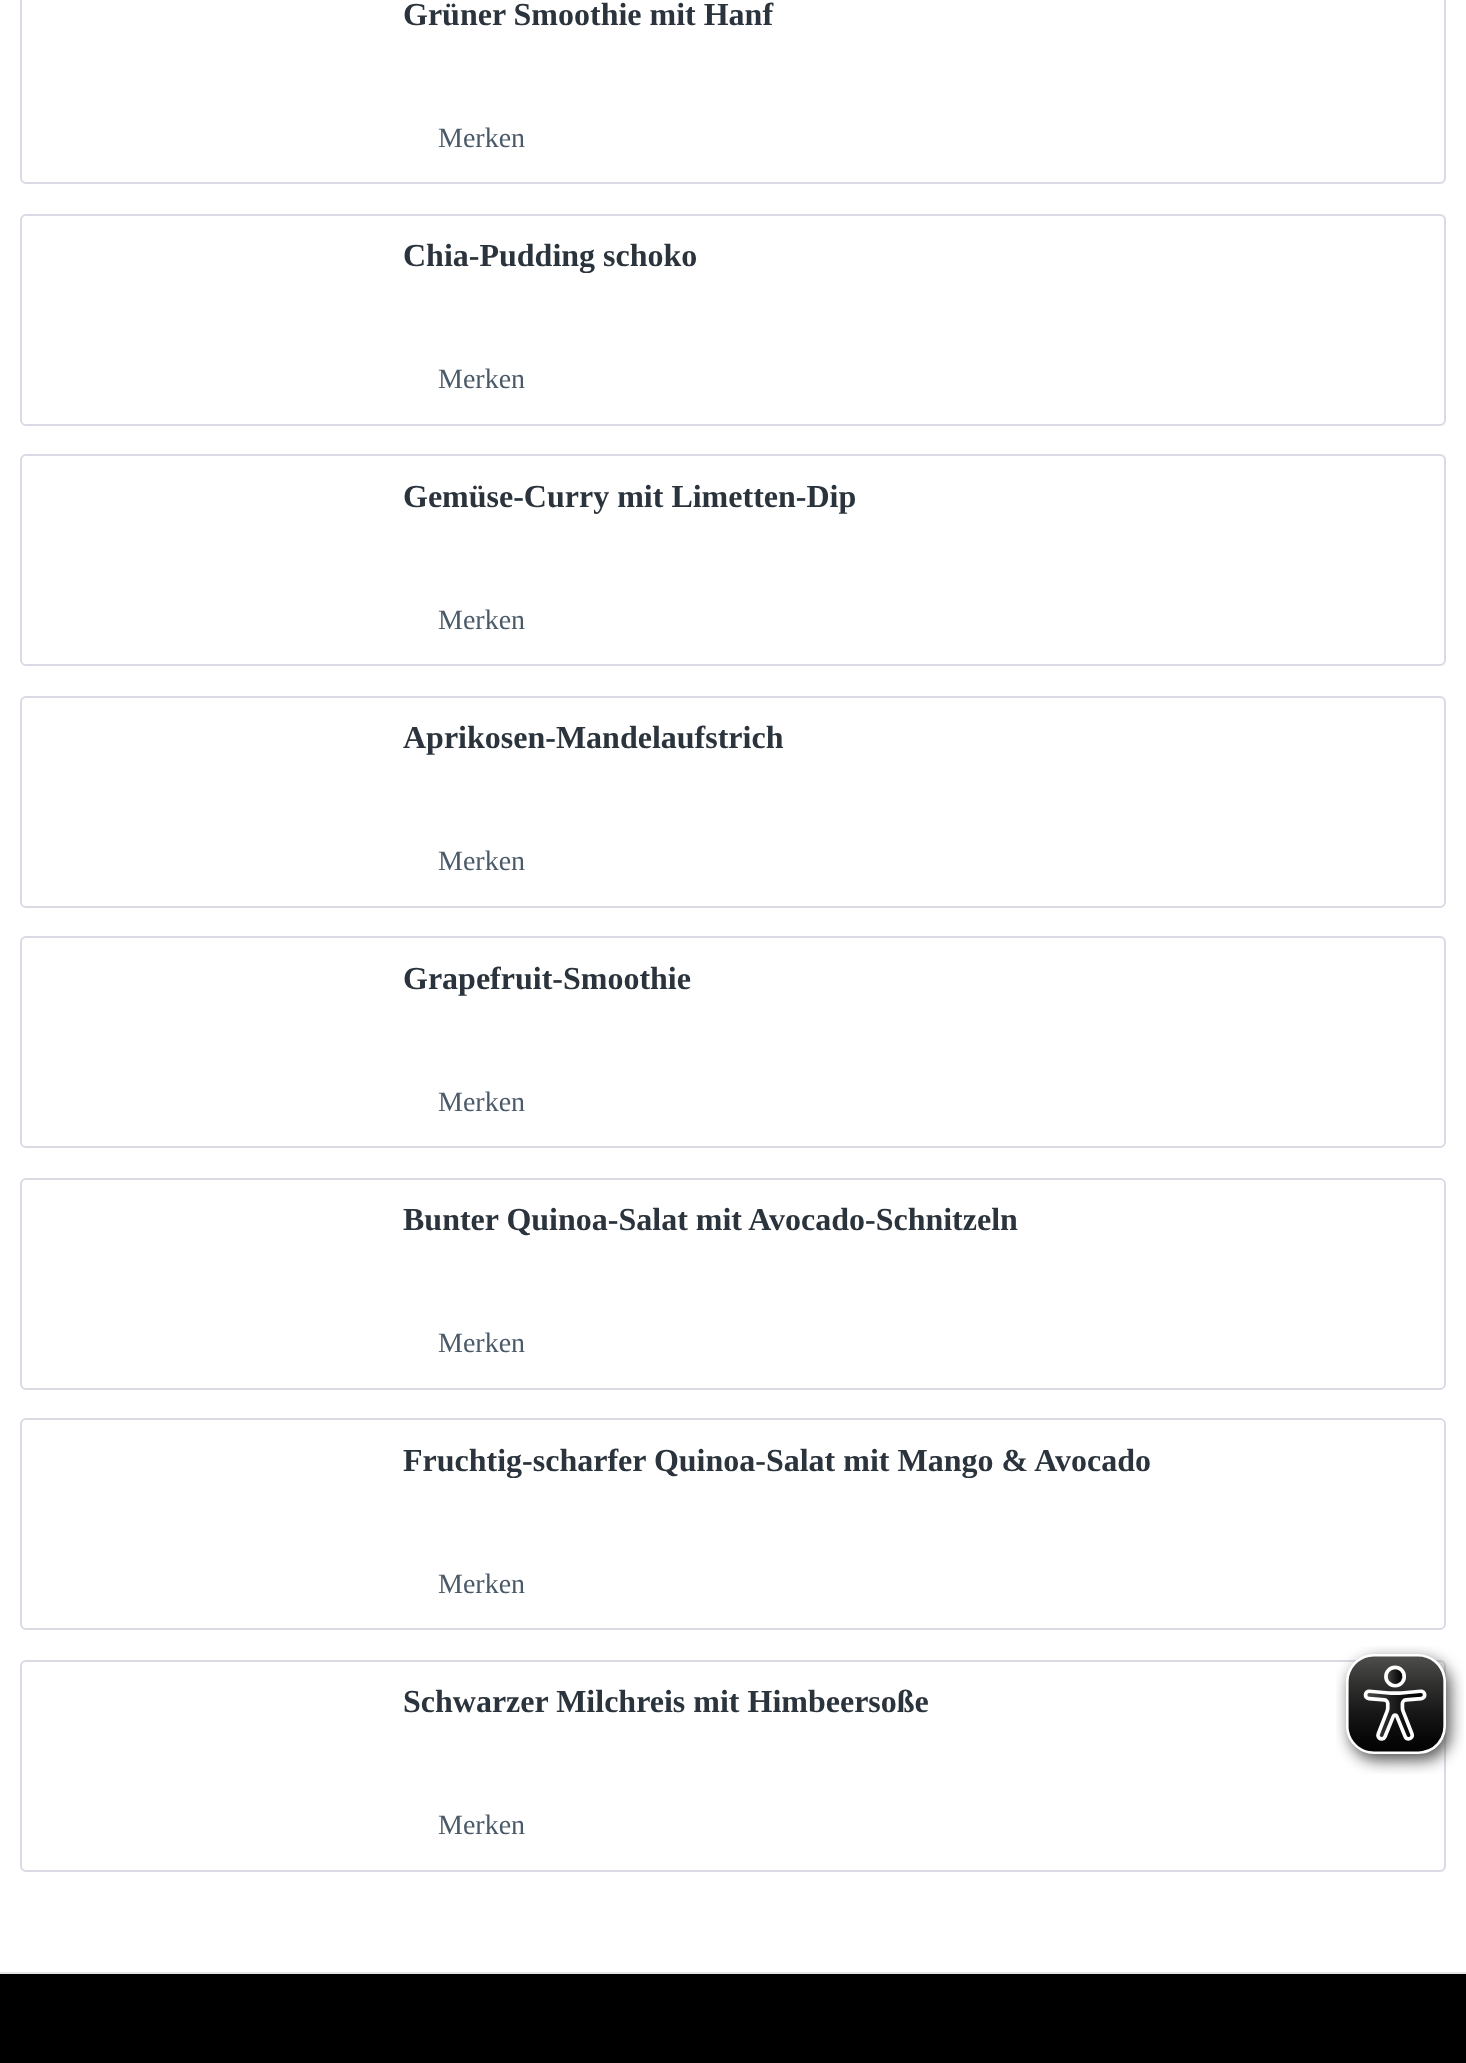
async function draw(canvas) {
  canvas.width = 1466
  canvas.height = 2063
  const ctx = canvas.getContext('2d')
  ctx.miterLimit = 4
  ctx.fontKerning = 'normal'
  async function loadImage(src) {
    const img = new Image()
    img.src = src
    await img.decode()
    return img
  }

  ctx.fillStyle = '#000'
  ctx.fillRect(0, 0, 1466, 2063)
  ctx.fillStyle = '#fff'
  ctx.fillRect(0, 0, 1466, 1972)
  ctx.beginPath()
  ctx.roundRect(21, -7, 1424, 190, 5)
  ctx.strokeStyle = '#dadae5'
  ctx.lineWidth = 2
  ctx.stroke()
  ctx.font = 'bold 32px Liberation Serif'
  ctx.fillStyle = '#2b343c'
  ctx.fillText('Grüner Smoothie mit Hanf', 403, 25)
  ctx.font = '28px Liberation Serif'
  ctx.fillStyle = '#4b5a69'
  ctx.fillText('Merken', 438, 147)
  ctx.beginPath()
  ctx.roundRect(21, 215, 1424, 210, 5)
  ctx.stroke()
  ctx.font = 'bold 32px Liberation Serif'
  ctx.fillStyle = '#2b343c'
  ctx.fillText('Chia-Pudding schoko', 403, 266)
  ctx.font = '28px Liberation Serif'
  ctx.fillStyle = '#4b5a69'
  ctx.fillText('Merken', 438, 388)
  ctx.beginPath()
  ctx.roundRect(21, 455, 1424, 210, 5)
  ctx.stroke()
  ctx.font = 'bold 32px Liberation Serif'
  ctx.fillStyle = '#2b343c'
  ctx.fillText('Gemüse-Curry mit Limetten-Dip', 403, 507)
  ctx.font = '28px Liberation Serif'
  ctx.fillStyle = '#4b5a69'
  ctx.fillText('Merken', 438, 629)
  ctx.beginPath()
  ctx.roundRect(21, 697, 1424, 210, 5)
  ctx.stroke()
  ctx.font = 'bold 32px Liberation Serif'
  ctx.fillStyle = '#2b343c'
  ctx.fillText('Aprikosen-Mandelaufstrich', 403, 748)
  ctx.font = '28px Liberation Serif'
  ctx.fillStyle = '#4b5a69'
  ctx.fillText('Merken', 438, 870)
  ctx.beginPath()
  ctx.roundRect(21, 937, 1424, 210, 5)
  ctx.stroke()
  ctx.font = 'bold 32px Liberation Serif'
  ctx.fillStyle = '#2b343c'
  ctx.fillText('Grapefruit-Smoothie', 403, 989)
  ctx.font = '28px Liberation Serif'
  ctx.fillStyle = '#4b5a69'
  ctx.fillText('Merken', 438, 1111)
  ctx.beginPath()
  ctx.roundRect(21, 1179, 1424, 210, 5)
  ctx.stroke()
  ctx.font = 'bold 32px Liberation Serif'
  ctx.fillStyle = '#2b343c'
  ctx.fillText('Bunter Quinoa-Salat mit Avocado-Schnitzeln', 403, 1230)
  ctx.font = '28px Liberation Serif'
  ctx.fillStyle = '#4b5a69'
  ctx.fillText('Merken', 438, 1352)
  ctx.beginPath()
  ctx.roundRect(21, 1419, 1424, 210, 5)
  ctx.stroke()
  ctx.font = 'bold 32px Liberation Serif'
  ctx.fillStyle = '#2b343c'
  ctx.fillText('Fruchtig-scharfer Quinoa-Salat mit Mango & Avocado', 403, 1471)
  ctx.font = '28px Liberation Serif'
  ctx.fillStyle = '#4b5a69'
  ctx.fillText('Merken', 438, 1593)
  ctx.beginPath()
  ctx.roundRect(21, 1661, 1424, 210, 5)
  ctx.stroke()
  ctx.font = 'bold 32px Liberation Serif'
  ctx.fillStyle = '#2b343c'
  ctx.fillText('Schwarzer Milchreis mit Himbeersoße', 403, 1712)
  ctx.font = '28px Liberation Serif'
  ctx.fillStyle = '#4b5a69'
  ctx.fillText('Merken', 438, 1834)
  ctx.fillStyle = '#e5e5e5'
  ctx.fillRect(0, 1972, 1466, 2)
  ctx.drawImage(await loadImage('image0.png'), 1336, 1646, 128, 128)
}

draw(document.querySelector('canvas'))
